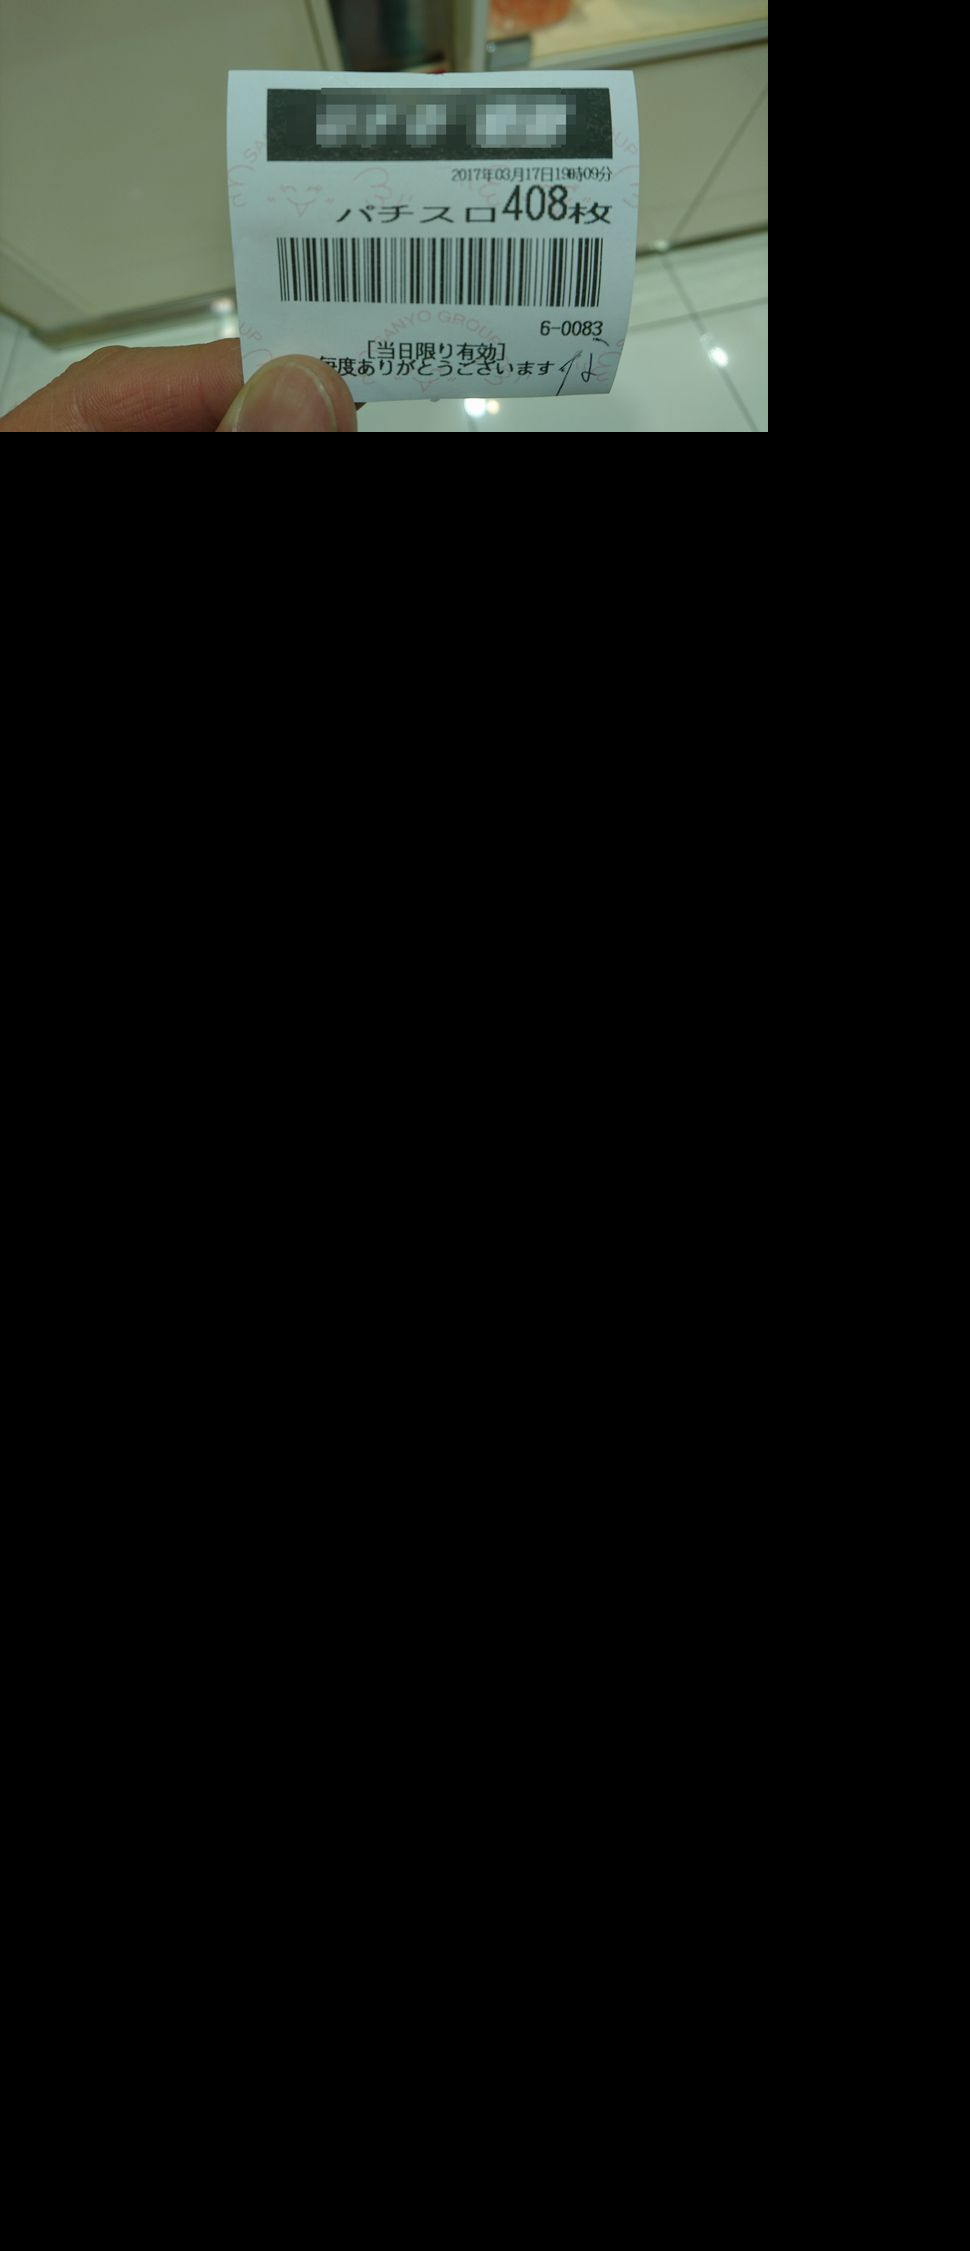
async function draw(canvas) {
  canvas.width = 970
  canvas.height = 2251
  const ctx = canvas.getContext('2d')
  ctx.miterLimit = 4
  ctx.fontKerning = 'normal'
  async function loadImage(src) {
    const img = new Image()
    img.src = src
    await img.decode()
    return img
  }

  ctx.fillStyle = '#000'
  ctx.fillRect(0, 0, 970, 2251)
  ctx.drawImage(await loadImage('image0.png'), 0, 0, 768, 432)
}

draw(document.querySelector('canvas'))
